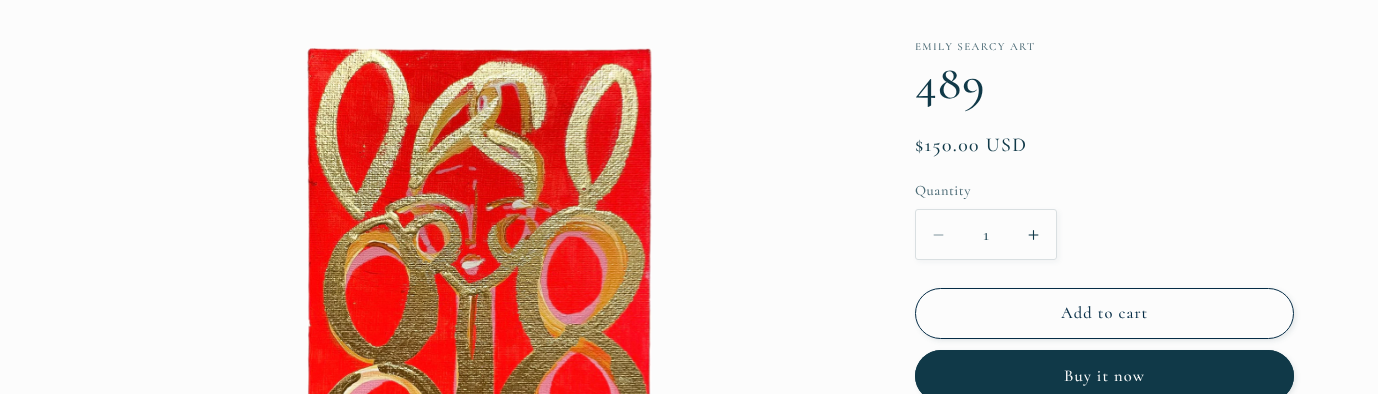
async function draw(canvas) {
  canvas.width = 1378
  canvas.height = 394
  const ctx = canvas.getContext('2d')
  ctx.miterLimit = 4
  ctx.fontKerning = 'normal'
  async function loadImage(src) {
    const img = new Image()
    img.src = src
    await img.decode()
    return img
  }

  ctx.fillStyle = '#fcfcfc'
  ctx.fillRect(0, 0, 1378, 394)
  ctx.drawImage(await loadImage('image0.png'), 307, 48, 345, 346)
  ctx.letterSpacing = '1.4px'
  ctx.font = '500 11px Cormorant'
  ctx.fillStyle = '#4b6a75'
  ctx.fillText('EMILY SEARCY ART', 915, 50)
  ctx.letterSpacing = '1px'
  ctx.font = '500 48px Cormorant'
  ctx.fillStyle = '#103948'
  ctx.fillText('489', 915, 98)
  ctx.letterSpacing = '1.4px'
  ctx.font = '500 19.75px Cormorant'
  ctx.fillText('$150.00 USD', 915, 151)
  ctx.letterSpacing = '0.5px'
  ctx.font = '500 14.5px Cormorant'
  ctx.fillStyle = '#4b6a75'
  ctx.fillText('Quantity', 915, 195)
  ctx.fillStyle = '#1039480d'
  ctx.filter = 'blur(2.5px)'
  ctx.beginPath()
  ctx.roundRect(917, 211, 142, 51, 3)
  ctx.fill()
  ctx.filter = 'none'
  ctx.fillStyle = '#fcfcfc'
  ctx.beginPath()
  ctx.roundRect(915, 209, 142, 51, 3)
  ctx.fill()
  ctx.drawImage(await loadImage('image1.png'), 933, 234, 11, 2)
  ctx.drawImage(await loadImage('image2.png'), 1028, 230, 11, 10)
  ctx.beginPath()
  ctx.roundRect(915.5, 209.5, 141, 50, 2.5)
  ctx.strokeStyle = '#d9dfe1'
  ctx.stroke()
  ctx.letterSpacing = '0px'
  ctx.font = '500 18px Cormorant'
  ctx.fillStyle = '#335663'
  ctx.fillText('1', 983, 240)
  ctx.fillStyle = '#1039481a'
  ctx.filter = 'blur(2.5px)'
  ctx.beginPath()
  ctx.roundRect(917, 290, 379, 51, 25.5)
  ctx.fill()
  ctx.filter = 'none'
  ctx.fillStyle = '#fcfcfc'
  ctx.beginPath()
  ctx.roundRect(915, 288, 379, 51, 25.5)
  ctx.fill()
  ctx.beginPath()
  ctx.roundRect(915.5, 288.5, 378, 50, 25)
  ctx.strokeStyle = '#fcfcfc'
  ctx.stroke()
  ctx.beginPath()
  ctx.roundRect(915.5, 288.5, 378, 50, 25)
  ctx.strokeStyle = '#052c46'
  ctx.stroke()
  ctx.letterSpacing = '1.1px'
  ctx.font = '500 16.5px Cormorant'
  ctx.fillStyle = '#052c46'
  ctx.fillText('Add to cart', 1061, 318)
  ctx.fillStyle = '#1039481a'
  ctx.filter = 'blur(2.5px)'
  ctx.beginPath()
  ctx.roundRect(917, 352, 379, 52, 26)
  ctx.fill()
  ctx.filter = 'none'
  ctx.fillStyle = '#103948'
  ctx.beginPath()
  ctx.roundRect(915, 350, 379, 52, 26)
  ctx.fill()
  ctx.beginPath()
  ctx.roundRect(915.5, 350.5, 378, 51, 25.5)
  ctx.strokeStyle = '#103948'
  ctx.stroke()
  ctx.fillStyle = '#fcfcfc'
  ctx.fillText('Buy it now', 1064, 381)
}

draw(document.querySelector('canvas'))
